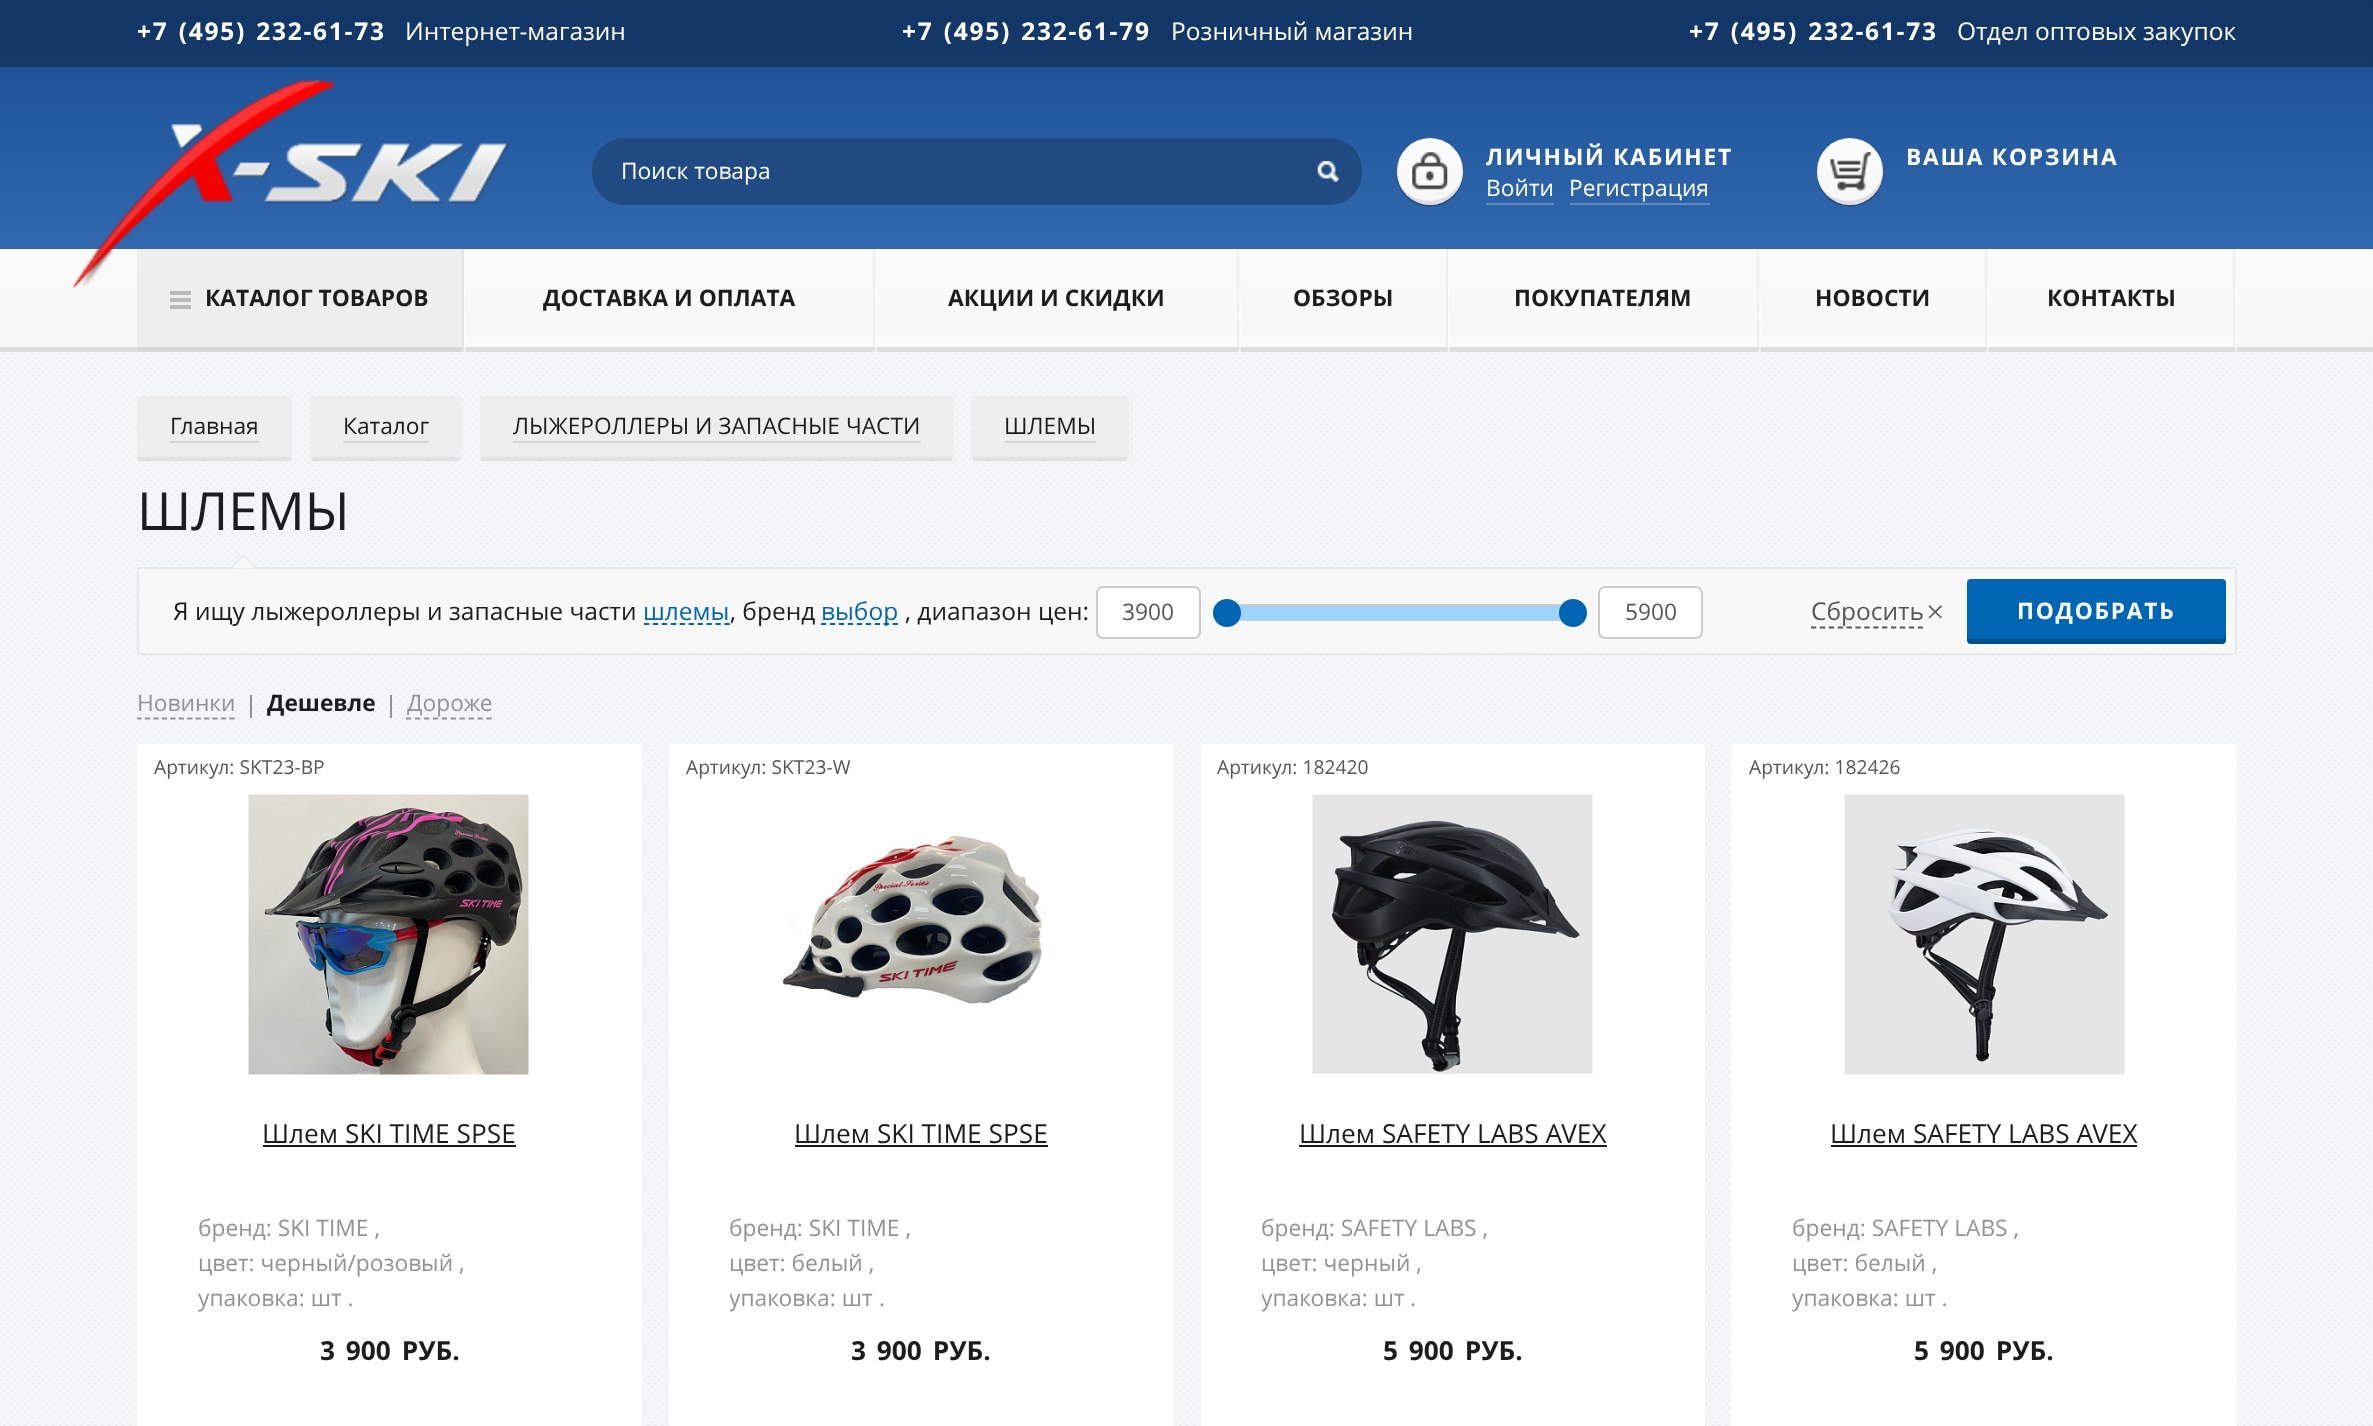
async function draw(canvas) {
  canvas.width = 2373
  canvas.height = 1426
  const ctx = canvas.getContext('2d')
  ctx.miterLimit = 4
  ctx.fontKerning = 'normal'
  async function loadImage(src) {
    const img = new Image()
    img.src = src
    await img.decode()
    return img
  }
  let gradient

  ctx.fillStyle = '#f4f6f7'
  ctx.fillRect(0, 0, 2373, 1426)
  ctx.drawImage(await loadImage('image0.png'), 0, 353, 2371, 1073)
  gradient = ctx.createLinearGradient(1187, 0, 1187, 67)
  gradient.addColorStop(0, '#113565')
  gradient.addColorStop(1, '#153a6a')
  ctx.fillStyle = gradient
  ctx.fillRect(0, 0, 2373, 67)
  ctx.letterSpacing = '1.75px'
  ctx.wordSpacing = '2px'
  ctx.font = 'bold 24.5px Open Sans'
  ctx.fillStyle = '#fff'
  ctx.fillText('+7 (495) 232-61-73', 137, 40)
  ctx.letterSpacing = '0px'
  ctx.wordSpacing = '0px'
  ctx.font = '24.5px Open Sans'
  ctx.fillText('Интернет-магазин', 405, 40)
  ctx.letterSpacing = '1.75px'
  ctx.wordSpacing = '2px'
  ctx.font = 'bold 24.5px Open Sans'
  ctx.fillText('+7 (495) 232-61-79', 902, 40)
  ctx.letterSpacing = '0px'
  ctx.wordSpacing = '0px'
  ctx.font = '24.5px Open Sans'
  ctx.fillText('Розничный магазин', 1171, 40)
  ctx.letterSpacing = '1.75px'
  ctx.wordSpacing = '2px'
  ctx.font = 'bold 24.5px Open Sans'
  ctx.fillText('+7 (495) 232-61-73', 1689, 40)
  ctx.letterSpacing = '0px'
  ctx.wordSpacing = '0px'
  ctx.font = '24.5px Open Sans'
  ctx.fillText('Отдел оптовых закупок', 1957, 40)
  gradient = ctx.createLinearGradient(1187, 66, 1187, 249)
  gradient.addColorStop(0, '#1e5398')
  gradient.addColorStop(1, '#3168ae')
  ctx.fillStyle = gradient
  ctx.fillRect(0, 67, 2373, 182)
  ctx.fillStyle = '#204b82'
  ctx.beginPath()
  ctx.roundRect(592, 138, 770, 67, 32)
  ctx.fill()
  ctx.font = '22.75px Open Sans'
  ctx.fillStyle = '#fff'
  ctx.fillText('Поиск товара', 621, 179)
  ctx.drawImage(await loadImage('image1.png'), 1317, 161, 22, 21)
  ctx.fillStyle = '#00000233'
  ctx.beginPath()
  ctx.moveTo(1463, 172)
  ctx.bezierCurveTo(1462, 211, 1406, 217, 1397, 179)
  ctx.bezierCurveTo(1404, 219, 1464, 215, 1463, 172)
  ctx.closePath()
  ctx.fill()
  gradient = ctx.createLinearGradient(1430, 138, 1430, 205)
  gradient.addColorStop(0, '#fbfbfb')
  gradient.addColorStop(1, '#f7f7f7')
  ctx.fillStyle = gradient
  ctx.beginPath()
  ctx.roundRect(1397, 138, 66, 67, 33)
  ctx.fill()
  ctx.fillStyle = '#0000021a'
  ctx.beginPath()
  ctx.moveTo(1397, 178)
  ctx.bezierCurveTo(1404, 218, 1465, 212, 1463, 169)
  ctx.bezierCurveTo(1461, 207, 1408, 212, 1397, 178)
  ctx.closePath()
  ctx.fill()
  ctx.drawImage(await loadImage('image2.png'), 1412, 152, 36, 38)
  ctx.letterSpacing = '1.75px'
  ctx.font = 'bold 22.75px Open Sans'
  ctx.fillStyle = '#fff'
  ctx.fillText('ЛИЧНЫЙ КАБИНЕТ', 1486, 165)
  ctx.letterSpacing = '0px'
  ctx.font = '22.75px Open Sans'
  ctx.fillText('Войти', 1486, 196)
  ctx.fillStyle = '#628bbf'
  ctx.fillRect(1486, 203, 68, 2)
  ctx.fillStyle = '#fff'
  ctx.fillText('Регистрация', 1569, 196)
  ctx.fillStyle = '#628bbf'
  ctx.fillRect(1570, 203, 140, 2)
  ctx.fillStyle = '#00000233'
  ctx.beginPath()
  ctx.moveTo(1883, 172)
  ctx.bezierCurveTo(1882, 211, 1826, 217, 1817, 179)
  ctx.bezierCurveTo(1824, 219, 1884, 215, 1883, 172)
  ctx.closePath()
  ctx.fill()
  gradient = ctx.createLinearGradient(1850, 138, 1850, 205)
  gradient.addColorStop(0, '#fbfbfb')
  gradient.addColorStop(1, '#f7f7f7')
  ctx.fillStyle = gradient
  ctx.beginPath()
  ctx.roundRect(1817, 138, 66, 67, 33)
  ctx.fill()
  ctx.fillStyle = '#0000021a'
  ctx.beginPath()
  ctx.moveTo(1817, 178)
  ctx.bezierCurveTo(1824, 218, 1885, 212, 1883, 169)
  ctx.bezierCurveTo(1881, 207, 1828, 212, 1817, 178)
  ctx.closePath()
  ctx.fill()
  ctx.drawImage(await loadImage('image3.png'), 1830, 152, 41, 39)
  ctx.letterSpacing = '1.75px'
  ctx.font = 'bold 22.75px Open Sans'
  ctx.fillStyle = '#fff'
  ctx.fillText('ВАША КОРЗИНА', 1906, 165)
  gradient = ctx.createLinearGradient(1187, 248, 1187, 347)
  gradient.addColorStop(0, '#fbfbfb')
  gradient.addColorStop(1, '#f7f7f7')
  ctx.fillStyle = gradient
  ctx.fillRect(0, 249, 2373, 98)
  ctx.fillStyle = '#dedede'
  ctx.fillRect(0, 347, 2373, 5)
  ctx.drawImage(await loadImage('image4.png'), 73, 80, 435, 208)
  ctx.fillStyle = '#eee'
  ctx.fillRect(137, 249, 325, 98)
  ctx.fillStyle = '#d6d6d6'
  ctx.fillRect(137, 347, 325, 5)
  ctx.fillStyle = '#b9b9b9'
  ctx.fillRect(170, 291, 21, 4)
  ctx.fillRect(170, 298, 21, 4)
  ctx.fillRect(170, 305, 21, 4)
  ctx.letterSpacing = '0px'
  ctx.fillStyle = '#1d1d1d'
  ctx.fillText('КАТАЛОГ ТОВАРОВ', 205, 306)
  ctx.fillStyle = '#ffffff80'
  ctx.fillRect(464, 285, 2, 67)
  ctx.fillStyle = '#e2e2e2'
  ctx.fillRect(462, 249, 2, 103)
  ctx.fillStyle = '#fafafa'
  ctx.fillRect(466, 335, 407, 12)
  ctx.fillStyle = '#1d1d1d'
  ctx.fillText('ДОСТАВКА И ОПЛАТА', 543, 306)
  ctx.fillStyle = '#ffffff80'
  ctx.fillRect(873, 285, 4, 67)
  ctx.fillStyle = '#0000000d'
  ctx.fillRect(873, 249, 2, 103)
  ctx.fillStyle = '#fafafa'
  ctx.fillRect(877, 335, 360, 12)
  ctx.fillStyle = '#1d1d1d'
  ctx.fillText('АКЦИИ И СКИДКИ', 948, 306)
  ctx.fillStyle = '#ffffff80'
  ctx.fillRect(1237, 285, 4, 67)
  ctx.fillStyle = '#0000000d'
  ctx.fillRect(1237, 249, 2, 103)
  ctx.fillStyle = '#fafafa'
  ctx.fillRect(1241, 335, 205, 12)
  ctx.fillStyle = '#1d1d1d'
  ctx.fillText('ОБЗОРЫ', 1293, 306)
  ctx.fillStyle = '#fafafa'
  ctx.fillRect(1449, 335, 308, 12)
  ctx.fillStyle = '#ffffff80'
  ctx.fillRect(1446, 285, 4, 67)
  ctx.fillStyle = '#0000000d'
  ctx.fillRect(1446, 249, 2, 103)
  ctx.fillStyle = '#1d1d1d'
  ctx.fillText('ПОКУПАТЕЛЯМ', 1514, 306)
  ctx.fillStyle = '#ffffff80'
  ctx.fillRect(1757, 285, 4, 67)
  ctx.fillStyle = '#0000000d'
  ctx.fillRect(1757, 249, 2, 103)
  ctx.fillStyle = '#fafafa'
  ctx.fillRect(1761, 335, 224, 12)
  ctx.fillStyle = '#1d1d1d'
  ctx.fillText('НОВОСТИ', 1815, 306)
  ctx.fillStyle = '#fafafa'
  ctx.fillRect(1988, 335, 245, 12)
  ctx.fillStyle = '#ffffff80'
  ctx.fillRect(1985, 285, 4, 67)
  ctx.fillStyle = '#0000000d'
  ctx.fillRect(1985, 249, 2, 103)
  ctx.fillStyle = '#1d1d1d'
  ctx.fillText('КОНТАКТЫ', 2047, 306)
  ctx.fillStyle = '#ffffff80'
  ctx.fillRect(2233, 285, 4, 67)
  ctx.fillStyle = '#0000000d'
  ctx.fillRect(2233, 249, 2, 103)
  ctx.fillStyle = '#eee'
  ctx.beginPath()
  ctx.roundRect(137, 396, 155, 64, 4)
  ctx.fill()
  ctx.fillStyle = '#e2e2e2'
  ctx.fillRect(138, 457, 153, 4)
  ctx.font = '22.75px Open Sans'
  ctx.fillStyle = '#1d1d1d'
  ctx.fillText('Главная', 170, 434)
  ctx.fillStyle = '#d6d6d6'
  ctx.fillRect(170, 441, 89, 2)
  ctx.fillStyle = '#eee'
  ctx.beginPath()
  ctx.roundRect(310, 396, 152, 64, 4)
  ctx.fill()
  ctx.fillStyle = '#e2e2e2'
  ctx.fillRect(312, 457, 148, 4)
  ctx.fillStyle = '#1d1d1d'
  ctx.fillText('Каталог', 343, 434)
  ctx.fillStyle = '#d6d6d6'
  ctx.fillRect(343, 441, 86, 2)
  ctx.fillStyle = '#eee'
  ctx.beginPath()
  ctx.roundRect(480, 396, 474, 64, 4)
  ctx.fill()
  ctx.fillStyle = '#e2e2e2'
  ctx.fillRect(481, 457, 471, 4)
  ctx.fillStyle = '#1d1d1d'
  ctx.fillText('ЛЫЖЕРОЛЛЕРЫ И ЗАПАСНЫЕ ЧАСТИ', 513, 434)
  ctx.fillStyle = '#d6d6d6'
  ctx.fillRect(513, 441, 408, 2)
  ctx.fillStyle = '#eee'
  ctx.beginPath()
  ctx.roundRect(971, 396, 158, 64, 4)
  ctx.fill()
  ctx.fillStyle = '#e2e2e2'
  ctx.fillRect(973, 457, 154, 4)
  ctx.fillStyle = '#1d1d1d'
  ctx.fillText('ШЛЕМЫ', 1004, 434)
  ctx.fillStyle = '#d6d6d6'
  ctx.fillRect(1005, 441, 91, 2)
  ctx.font = '52.5px Open Sans'
  ctx.fillStyle = '#1d1d1d'
  ctx.fillText('ШЛЕМЫ', 137, 530)
  ctx.fillStyle = '#f8f8f8'
  ctx.beginPath()
  ctx.roundRect(138, 568, 2098, 86, 3)
  ctx.fill()
  ctx.strokeStyle = '#e8e9ea'
  ctx.lineWidth = 2
  ctx.stroke()
  ctx.drawImage(await loadImage('image5.png'), 231, 555, 25, 14)
  ctx.font = '24.5px Open Sans'
  ctx.fillStyle = '#1d1d1d'
  ctx.fillText('Я ищу лыжероллеры и запасные части', 173, 620)
  ctx.fillStyle = '#0065b3'
  ctx.fillText('шлемы', 643, 620)
  ctx.beginPath()
  ctx.moveTo(644, 624)
  ctx.lineTo(730, 624)
  ctx.strokeStyle = '#0065b3'
  ctx.lineWidth = 1.8
  ctx.setLineDash([5.25, 3.69])
  ctx.stroke()
  ctx.fillStyle = '#1d1d1d'
  ctx.fillText(', бренд', 730, 620)
  ctx.fillStyle = '#0065b3'
  ctx.fillText('выбор', 821, 620)
  ctx.beginPath()
  ctx.moveTo(821, 624)
  ctx.lineTo(898, 624)
  ctx.setLineDash([5.25, 3.71])
  ctx.stroke()
  ctx.fillStyle = '#1d1d1d'
  ctx.fillText(', диапазон цен:', 905, 620)
  ctx.fillStyle = '#fff'
  ctx.beginPath()
  ctx.roundRect(1097, 587, 103, 51, 6)
  ctx.fill()
  ctx.strokeStyle = '#cbcbcb'
  ctx.lineWidth = 2
  ctx.setLineDash([])
  ctx.stroke()
  ctx.font = '22.75px Open Sans'
  ctx.fillStyle = '#565656'
  ctx.fillText('3900', 1122, 620)
  ctx.strokeRect(1226, 605, 348, 15)
  ctx.fillStyle = '#9cd4ff'
  ctx.fillRect(1239, 606, 322, 14)
  ctx.fillStyle = '#0065b3'
  ctx.beginPath()
  ctx.arc(1227, 613, 14, 0, 2 * Math.PI)
  ctx.fill()
  ctx.beginPath()
  ctx.arc(1573, 613, 14, 0, 2 * Math.PI)
  ctx.fill()
  ctx.fillStyle = '#fff'
  ctx.beginPath()
  ctx.roundRect(1599, 587, 103, 51, 6)
  ctx.fill()
  ctx.stroke()
  ctx.fillStyle = '#565656'
  ctx.fillText('5900', 1625, 620)
  ctx.font = '24.5px Open Sans'
  ctx.fillText('Сбросить', 1811, 620)
  ctx.beginPath()
  ctx.moveTo(1811, 627.5)
  ctx.lineTo(1923, 627.5)
  ctx.strokeStyle = '#565656'
  ctx.lineWidth = 1.8
  ctx.setLineDash([5.25, 3.64])
  ctx.stroke()
  ctx.beginPath()
  ctx.moveTo(1941, 605)
  ctx.lineTo(1942, 606.5)
  ctx.lineTo(1929.5, 618.5)
  ctx.lineTo(1928.5, 617.5)
  ctx.closePath()
  ctx.fill()
  ctx.beginPath()
  ctx.moveTo(1928.5, 606.5)
  ctx.lineTo(1929.5, 605)
  ctx.lineTo(1942, 617.5)
  ctx.lineTo(1941, 618.5)
  ctx.closePath()
  ctx.fill()
  ctx.fillStyle = '#0065b3'
  ctx.beginPath()
  ctx.roundRect(1967, 579, 259, 65, 4)
  ctx.fill()
  ctx.fillStyle = '#00000233'
  ctx.beginPath()
  ctx.moveTo(1967, 635)
  ctx.lineTo(1967, 640)
  ctx.bezierCurveTo(1967, 642, 1969, 644, 1971, 644)
  ctx.lineTo(2222, 644)
  ctx.bezierCurveTo(2224, 644, 2226, 642, 2226, 640)
  ctx.lineTo(2226, 635)
  ctx.bezierCurveTo(2226, 637, 2224, 639, 2222, 639)
  ctx.lineTo(1970, 639)
  ctx.bezierCurveTo(1969, 639, 1967, 637, 1967, 635)
  ctx.closePath()
  ctx.fill()
  ctx.letterSpacing = '1.75px'
  ctx.font = 'bold 22.75px Open Sans'
  ctx.fillStyle = '#fff'
  ctx.fillText('ПОДОБРАТЬ', 2017, 619)
  ctx.letterSpacing = '0px'
  ctx.font = '22.75px Open Sans'
  ctx.fillStyle = '#939393'
  ctx.fillText('Новинки', 137, 711)
  ctx.save()
  ctx.beginPath()
  ctx.rect(137, 681, 2100, 63)
  ctx.clip()
  ctx.beginPath()
  ctx.moveTo(136.5, 718.5)
  ctx.lineTo(234.5, 718.5)
  ctx.strokeStyle = '#939393'
  ctx.setLineDash([5.25, 3.19])
  ctx.stroke()
  ctx.restore()
  ctx.fillRect(250, 695, 2, 23)
  ctx.font = 'bold 22.75px Open Sans'
  ctx.fillStyle = '#1d1d1d'
  ctx.fillText('Дешевле', 267, 711)
  ctx.fillStyle = '#939393'
  ctx.fillRect(390, 695, 2, 23)
  ctx.font = '22.75px Open Sans'
  ctx.fillText('Дороже', 407, 711)
  ctx.beginPath()
  ctx.moveTo(406, 718.5)
  ctx.lineTo(492, 718.5)
  ctx.strokeStyle = '#939393'
  ctx.setLineDash([5.25, 3.69])
  ctx.stroke()
  ctx.fillStyle = '#fff'
  ctx.beginPath()
  ctx.roundRect(137, 744, 505, 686, 4)
  ctx.fill()
  ctx.font = '19.25px Open Sans'
  ctx.fillStyle = '#565656'
  ctx.fillText('Артикул: SKT23-BP', 154, 774)
  ctx.drawImage(await loadImage('image6.png'), 248, 794, 281, 281)
  ctx.font = '26.25px Open Sans'
  ctx.fillStyle = '#1d1d1d'
  ctx.fillText('Шлем SKI TIME SPSE', 262, 1143)
  ctx.fillRect(263, 1145, 253, 2)
  ctx.font = '22.75px Open Sans'
  ctx.fillStyle = '#939393'
  ctx.fillText('бренд: SKI TIME ,', 198, 1236)
  ctx.fillText('цвет: черный/розовый ,', 198, 1271)
  ctx.fillText('упаковка: шт .', 198, 1306)
  ctx.wordSpacing = '4px'
  ctx.font = 'bold 26.25px Open Sans'
  ctx.fillStyle = '#1d1d1d'
  ctx.fillText('3 900 РУБ.', 320, 1360)
  ctx.fillStyle = '#fff'
  ctx.beginPath()
  ctx.roundRect(669, 744, 505, 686, 4)
  ctx.fill()
  ctx.wordSpacing = '0px'
  ctx.font = '19.25px Open Sans'
  ctx.fillStyle = '#565656'
  ctx.fillText('Артикул: SKT23-W', 686, 774)
  ctx.drawImage(await loadImage('image7.png'), 780, 835, 274, 169)
  ctx.font = '26.25px Open Sans'
  ctx.fillStyle = '#1d1d1d'
  ctx.fillText('Шлем SKI TIME SPSE', 794, 1143)
  ctx.fillRect(795, 1145, 253, 2)
  ctx.font = '22.75px Open Sans'
  ctx.fillStyle = '#939393'
  ctx.fillText('бренд: SKI TIME ,', 729, 1236)
  ctx.fillText('цвет: белый ,', 729, 1271)
  ctx.save()
  ctx.beginPath()
  ctx.rect(730, 1279, 383, 35)
  ctx.clip()
  ctx.fillText('упаковка: шт', 729, 1306)
  ctx.restore()
  ctx.fillText('.', 879, 1306)
  ctx.wordSpacing = '4px'
  ctx.font = 'bold 26.25px Open Sans'
  ctx.fillStyle = '#1d1d1d'
  ctx.fillText('3 900 РУБ.', 851, 1360)
  ctx.fillStyle = '#fff'
  ctx.beginPath()
  ctx.roundRect(1201, 744, 504, 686, 4)
  ctx.fill()
  ctx.wordSpacing = '0px'
  ctx.font = '19.25px Open Sans'
  ctx.fillStyle = '#565656'
  ctx.fillText('Артикул: 182420', 1217, 774)
  ctx.drawImage(await loadImage('image8.png'), 1312, 794, 281, 280)
  ctx.font = '26.25px Open Sans'
  ctx.fillStyle = '#1d1d1d'
  ctx.fillText('Шлем SAFETY LABS AVEX', 1299, 1143)
  ctx.fillRect(1299, 1145, 308, 2)
  ctx.font = '22.75px Open Sans'
  ctx.fillStyle = '#939393'
  ctx.fillText('бренд: SAFETY LABS ,', 1261, 1236)
  ctx.fillText('цвет: черный ,', 1261, 1271)
  ctx.save()
  ctx.beginPath()
  ctx.rect(1262, 1279, 381, 35)
  ctx.clip()
  ctx.fillText('упаковка: шт', 1261, 1306)
  ctx.restore()
  ctx.fillText('.', 1410, 1306)
  ctx.wordSpacing = '4px'
  ctx.font = 'bold 26.25px Open Sans'
  ctx.fillStyle = '#1d1d1d'
  ctx.fillText('5 900 РУБ.', 1383, 1360)
  ctx.fillStyle = '#fff'
  ctx.beginPath()
  ctx.roundRect(1731, 744, 506, 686, 4)
  ctx.fill()
  ctx.wordSpacing = '0px'
  ctx.font = '19.25px Open Sans'
  ctx.fillStyle = '#565656'
  ctx.fillText('Артикул: 182426', 1749, 774)
  ctx.drawImage(await loadImage('image9.png'), 1844, 794, 281, 281)
  ctx.font = '26.25px Open Sans'
  ctx.fillStyle = '#1d1d1d'
  ctx.fillText('Шлем SAFETY LABS AVEX', 1830, 1143)
  ctx.fillRect(1831, 1145, 306, 2)
  ctx.font = '22.75px Open Sans'
  ctx.fillStyle = '#939393'
  ctx.fillText('бренд: SAFETY LABS ,', 1792, 1236)
  ctx.fillText('цвет: белый ,', 1792, 1271)
  ctx.fillText('упаковка: шт .', 1792, 1306)
  ctx.wordSpacing = '4px'
  ctx.font = 'bold 26.25px Open Sans'
  ctx.fillStyle = '#1d1d1d'
  ctx.fillText('5 900 РУБ.', 1914, 1360)
}

draw(document.querySelector('canvas'))
